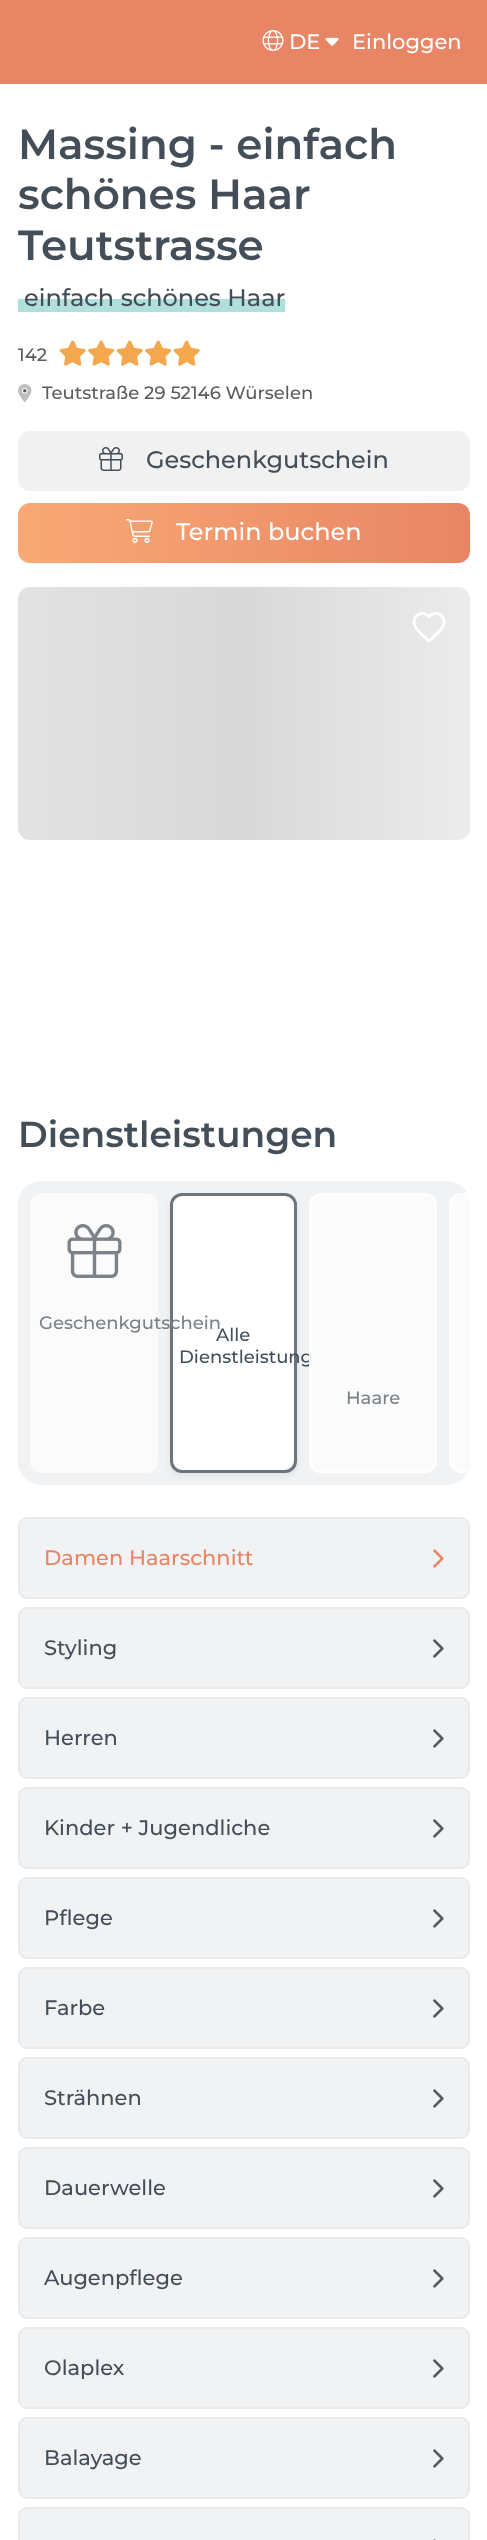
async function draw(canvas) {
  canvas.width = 487
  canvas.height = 2540
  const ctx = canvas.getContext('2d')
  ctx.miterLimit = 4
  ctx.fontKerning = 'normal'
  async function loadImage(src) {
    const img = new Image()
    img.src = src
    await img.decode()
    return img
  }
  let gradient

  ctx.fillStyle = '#fff'
  ctx.fillRect(0, 0, 487, 2540)
  ctx.fillStyle = '#e88565'
  ctx.fillRect(0, 0, 487, 84)
  ctx.drawImage(await loadImage('image0.png'), 262, 30, 22, 21)
  ctx.font = '500 21px Montserrat'
  ctx.fillStyle = '#fff'
  ctx.fillText('DE', 289, 49)
  ctx.drawImage(await loadImage('image1.png'), 325, 37, 14, 9)
  ctx.fillText('Einloggen', 352, 49)
  ctx.font = '600 42px Montserrat'
  ctx.fillStyle = '#434e58'
  ctx.fillText('Massing - einfach', 18, 159)
  ctx.fillText('schönes Haar', 18, 209)
  ctx.fillText('Teutstrasse', 18, 260)
  ctx.fillStyle = '#afe0dc'
  ctx.fillRect(18, 299, 267, 13)
  ctx.font = '500 24px Montserrat'
  ctx.fillStyle = '#434e58'
  ctx.fillText('einfach schönes Haar', 24, 306)
  ctx.font = '500 18px Montserrat'
  ctx.fillStyle = '#595c5f'
  ctx.fillText('142', 18, 361)
  ctx.drawImage(await loadImage('image2.png'), 59, 340, 27, 26)
  ctx.drawImage(await loadImage('image3.png'), 88, 340, 27, 26)
  ctx.drawImage(await loadImage('image2.png'), 116, 340, 27, 26)
  ctx.drawImage(await loadImage('image3.png'), 145, 340, 27, 26)
  ctx.drawImage(await loadImage('image2.png'), 173, 340, 27, 26)
  ctx.drawImage(await loadImage('image4.png'), 18, 384, 14, 18)
  ctx.fillText('Teutstraße 29 52146 Würselen', 42, 399)
  ctx.fillStyle = '#f1f1f1'
  ctx.beginPath()
  ctx.roundRect(18, 431, 452, 60, 12)
  ctx.fill()
  ctx.drawImage(await loadImage('image5.png'), 99, 447, 24, 24)
  ctx.font = '500 24px Montserrat'
  ctx.fillStyle = '#434e58'
  ctx.fillText('Geschenkgutschein', 146, 468)
  gradient = ctx.createLinearGradient(18, 533, 470, 533)
  gradient.addColorStop(0, '#f9a975')
  gradient.addColorStop(1, '#e88565')
  ctx.fillStyle = gradient
  ctx.beginPath()
  ctx.roundRect(18, 503, 452, 60, 12)
  ctx.fill()
  ctx.drawImage(await loadImage('image6.png'), 126, 519, 27, 24)
  ctx.fillStyle = '#fff'
  ctx.fillText('Termin buchen', 176, 540)
  gradient = ctx.createLinearGradient(-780, 1067, 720, 1067)
  gradient.addColorStop(0.18, '#fafafa')
  gradient.addColorStop(0.68, '#d8d8d8')
  gradient.addColorStop(0.94, '#fafafa')
  ctx.fillStyle = gradient
  ctx.beginPath()
  ctx.roundRect(18, 587, 452, 253, 12)
  ctx.fill()
  ctx.beginPath()
  ctx.moveTo(429, 641)
  ctx.bezierCurveTo(424.5, 636.5, 417.5, 632, 415, 626)
  ctx.bezierCurveTo(410.5, 616, 422.5, 609, 429, 616.5)
  ctx.bezierCurveTo(435.5, 609, 447.5, 616, 443, 626)
  ctx.bezierCurveTo(440.5, 632, 434, 636.5, 429, 641)
  ctx.closePath()
  ctx.strokeStyle = '#fff'
  ctx.lineWidth = 3
  ctx.lineJoin = 'round'
  ctx.stroke()
  ctx.font = '600 36px Montserrat'
  ctx.fillStyle = '#434e58'
  ctx.fillText('Dienstleistungen', 18, 1147)
  ctx.fillStyle = '#f0f2f4'
  ctx.beginPath()
  ctx.roundRect(18, 1181, 452, 304, 23)
  ctx.fill()
  ctx.fillStyle = '#fbfbfc'
  ctx.beginPath()
  ctx.roundRect(31.5, 1194.5, 125, 277, 10.5)
  ctx.fill()
  ctx.strokeStyle = '#fbfbfc'
  ctx.lineJoin = 'miter'
  ctx.stroke()
  ctx.drawImage(await loadImage('image7.png'), 67, 1224, 55, 54)
  ctx.fillStyle = '#00000012'
  ctx.filter = 'blur(3px)'
  ctx.beginPath()
  ctx.roundRect(170, 1196, 127, 280, 12)
  ctx.fill()
  ctx.filter = 'none'
  ctx.fillStyle = '#fff'
  ctx.beginPath()
  ctx.roundRect(171.5, 1194.5, 124, 277, 10.5)
  ctx.fill()
  ctx.strokeStyle = '#6c757d'
  ctx.stroke()
  ctx.font = '500 18px Montserrat'
  ctx.fillStyle = '#7a8189'
  ctx.fillText('Geschenkgutschein', 39, 1329)
  ctx.save()
  ctx.beginPath()
  ctx.roundRect(18, 1181, 452, 304, 23)
  ctx.clip()
  ctx.fillStyle = '#ffffffb3'
  ctx.beginPath()
  ctx.roundRect(449, 1193, 21, 280, [12, 0, 0, 12])
  ctx.fill()
  ctx.restore()
  ctx.fillStyle = '#ffffffb3'
  ctx.beginPath()
  ctx.moveTo(461, 1193)
  ctx.bezierCurveTo(454, 1193, 449, 1198, 449, 1205)
  ctx.lineTo(449, 1461)
  ctx.bezierCurveTo(449, 1468, 454, 1473, 461, 1473)
  ctx.lineTo(467, 1473)
  ctx.lineTo(469, 1470)
  ctx.lineTo(461, 1470)
  ctx.bezierCurveTo(456, 1470, 452, 1466, 452, 1461)
  ctx.lineTo(452, 1205)
  ctx.bezierCurveTo(452, 1200, 456, 1196, 461, 1196)
  ctx.lineTo(469, 1196)
  ctx.lineTo(467, 1193)
  ctx.closePath()
  ctx.fill()
  ctx.fillStyle = '#434e58'
  ctx.fillText('Alle', 216, 1341)
  ctx.fillText('Dienstleistung', 179, 1363)
  ctx.fillStyle = '#ffffffb3'
  ctx.beginPath()
  ctx.roundRect(309, 1193, 128, 280, 12)
  ctx.fill()
  ctx.beginPath()
  ctx.roundRect(310.5, 1194.5, 125, 277, 10.5)
  ctx.strokeStyle = '#ffffffb3'
  ctx.stroke()
  ctx.fillStyle = '#7a8189'
  ctx.fillText('Haare', 346, 1404)
  ctx.fillStyle = '#f1f2f4'
  ctx.beginPath()
  ctx.roundRect(19, 1518, 450, 80, 8)
  ctx.fill()
  ctx.strokeStyle = '#eaeaea'
  ctx.lineWidth = 2
  ctx.stroke()
  ctx.font = '500 21px Montserrat'
  ctx.fillStyle = '#e88565'
  ctx.fillText('Damen Haarschnitt', 44, 1565)
  ctx.drawImage(await loadImage('image8.png'), 433, 1549, 11, 19)
  ctx.fillStyle = '#f1f2f4'
  ctx.beginPath()
  ctx.roundRect(19, 1608, 450, 80, 8)
  ctx.fill()
  ctx.stroke()
  ctx.fillStyle = '#434e58'
  ctx.fillText('Styling', 44, 1655)
  ctx.drawImage(await loadImage('image9.png'), 433, 1639, 11, 19)
  ctx.fillStyle = '#f1f2f4'
  ctx.beginPath()
  ctx.roundRect(19, 1698, 450, 80, 8)
  ctx.fill()
  ctx.stroke()
  ctx.fillStyle = '#434e58'
  ctx.fillText('Herren', 44, 1745)
  ctx.drawImage(await loadImage('image9.png'), 433, 1729, 11, 19)
  ctx.fillStyle = '#f1f2f4'
  ctx.beginPath()
  ctx.roundRect(19, 1788, 450, 80, 8)
  ctx.fill()
  ctx.stroke()
  ctx.fillStyle = '#434e58'
  ctx.fillText('Kinder + Jugendliche', 44, 1835)
  ctx.drawImage(await loadImage('image9.png'), 433, 1819, 11, 19)
  ctx.fillStyle = '#f1f2f4'
  ctx.beginPath()
  ctx.roundRect(19, 1878, 450, 80, 8)
  ctx.fill()
  ctx.stroke()
  ctx.fillStyle = '#434e58'
  ctx.fillText('Pflege', 44, 1925)
  ctx.drawImage(await loadImage('image9.png'), 433, 1909, 11, 19)
  ctx.fillStyle = '#f1f2f4'
  ctx.beginPath()
  ctx.roundRect(19, 1968, 450, 80, 8)
  ctx.fill()
  ctx.stroke()
  ctx.fillStyle = '#434e58'
  ctx.fillText('Farbe', 44, 2015)
  ctx.drawImage(await loadImage('image9.png'), 433, 1999, 11, 19)
  ctx.fillStyle = '#f1f2f4'
  ctx.beginPath()
  ctx.roundRect(19, 2058, 450, 80, 8)
  ctx.fill()
  ctx.stroke()
  ctx.fillStyle = '#434e58'
  ctx.fillText('Strähnen', 44, 2105)
  ctx.drawImage(await loadImage('image9.png'), 433, 2089, 11, 19)
  ctx.fillStyle = '#f1f2f4'
  ctx.beginPath()
  ctx.roundRect(19, 2148, 450, 80, 8)
  ctx.fill()
  ctx.stroke()
  ctx.fillStyle = '#434e58'
  ctx.fillText('Dauerwelle', 44, 2195)
  ctx.drawImage(await loadImage('image9.png'), 433, 2179, 11, 19)
  ctx.fillStyle = '#f1f2f4'
  ctx.beginPath()
  ctx.roundRect(19, 2238, 450, 80, 8)
  ctx.fill()
  ctx.stroke()
  ctx.fillStyle = '#434e58'
  ctx.fillText('Augenpflege', 44, 2285)
  ctx.drawImage(await loadImage('image9.png'), 433, 2269, 11, 19)
  ctx.fillStyle = '#f1f2f4'
  ctx.beginPath()
  ctx.roundRect(19, 2328, 450, 80, 8)
  ctx.fill()
  ctx.stroke()
  ctx.fillStyle = '#434e58'
  ctx.fillText('Olaplex', 44, 2375)
  ctx.drawImage(await loadImage('image9.png'), 433, 2359, 11, 19)
  ctx.fillStyle = '#f1f2f4'
  ctx.beginPath()
  ctx.roundRect(19, 2418, 450, 80, 8)
  ctx.fill()
  ctx.stroke()
  ctx.fillStyle = '#434e58'
  ctx.fillText('Balayage', 44, 2465)
  ctx.drawImage(await loadImage('image9.png'), 433, 2449, 11, 19)
  ctx.fillStyle = '#f1f2f4'
  ctx.beginPath()
  ctx.roundRect(19, 2508, 450, 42, 8)
  ctx.fill()
  ctx.stroke()
  ctx.drawImage(await loadImage('image10.png'), 433, 2539, 3, 1)
}

draw(document.querySelector('canvas'))
